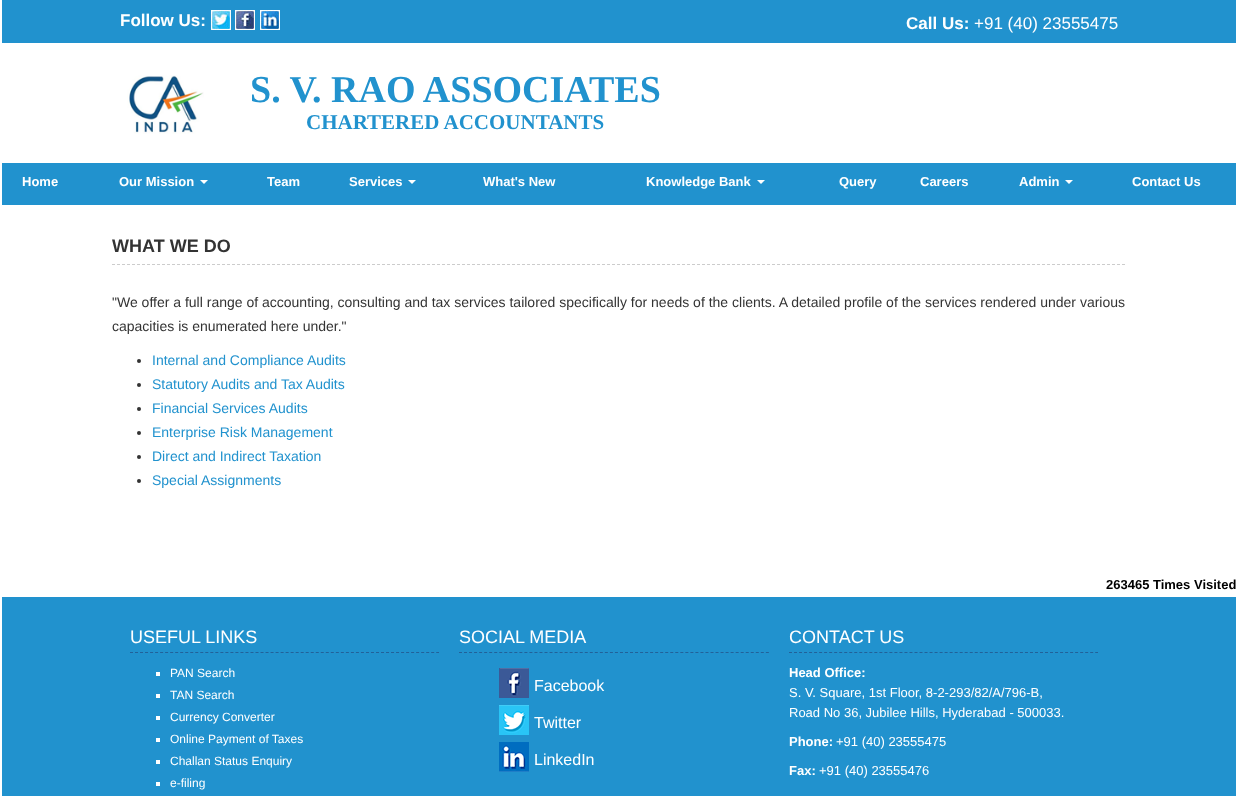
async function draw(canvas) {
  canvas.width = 1238
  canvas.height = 796
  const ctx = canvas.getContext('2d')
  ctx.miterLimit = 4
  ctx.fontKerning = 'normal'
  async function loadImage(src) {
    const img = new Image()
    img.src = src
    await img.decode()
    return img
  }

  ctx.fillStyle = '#fff'
  ctx.fillRect(0, 0, 1238, 796)
  ctx.fillStyle = '#2192ce'
  ctx.fillRect(2, 0, 1234, 43)
  ctx.font = 'bold 17px Liberation Sans'
  ctx.fillStyle = '#fff'
  ctx.fillText('Follow Us:', 120, 26)
  ctx.drawImage(await loadImage('image0.png'), 211, 10, 20, 20)
  ctx.drawImage(await loadImage('image1.png'), 235, 10, 20, 20)
  ctx.drawImage(await loadImage('image2.png'), 260, 10, 20, 20)
  ctx.fillText('Call Us:', 906, 29)
  ctx.font = '17px Liberation Sans'
  ctx.fillText('+91 (40) 23555475', 974, 29)
  ctx.drawImage(await loadImage('image3.png'), 127, 75, 77, 59)
  ctx.font = 'bold 38px Liberation Serif'
  ctx.fillStyle = '#2192ce'
  ctx.fillText('S. V. RAO ASSOCIATES', 250, 102)
  ctx.font = 'bold 21px Liberation Serif'
  ctx.fillText('CHARTERED ACCOUNTANTS', 306, 129)
  ctx.fillRect(2, 163, 1234, 42)
  ctx.font = 'bold 13px Liberation Sans'
  ctx.fillStyle = '#fff'
  ctx.fillText('Home', 22, 186)
  ctx.fillText('Our Mission', 119, 186)
  ctx.beginPath()
  ctx.moveTo(200, 180)
  ctx.lineTo(208, 180)
  ctx.lineTo(204, 184)
  ctx.closePath()
  ctx.fill()
  ctx.fillText('Team', 267, 186)
  ctx.fillText('Services', 349, 186)
  ctx.beginPath()
  ctx.moveTo(408, 180)
  ctx.lineTo(416, 180)
  ctx.lineTo(412, 184)
  ctx.closePath()
  ctx.fill()
  ctx.fillText('What\'s New', 483, 186)
  ctx.fillText('Knowledge Bank', 646, 186)
  ctx.beginPath()
  ctx.moveTo(757, 180)
  ctx.lineTo(765, 180)
  ctx.lineTo(761, 184)
  ctx.closePath()
  ctx.fill()
  ctx.fillText('Query', 839, 186)
  ctx.fillText('Careers', 920, 186)
  ctx.fillText('Admin', 1019, 186)
  ctx.beginPath()
  ctx.moveTo(1065, 180)
  ctx.lineTo(1073, 180)
  ctx.lineTo(1069, 184)
  ctx.closePath()
  ctx.fill()
  ctx.fillText('Contact Us', 1132, 186)
  ctx.beginPath()
  ctx.moveTo(112, 264.5)
  ctx.lineTo(1126, 264.5)
  ctx.strokeStyle = '#ccc'
  ctx.setLineDash([3, 2])
  ctx.stroke()
  ctx.font = 'bold 18px Liberation Sans'
  ctx.fillStyle = '#333'
  ctx.fillText('WHAT WE DO', 112, 252)
  ctx.font = '14px Liberation Sans'
  ctx.fillText('"We offer a full range of accounting, consulting and tax services tailored specifically for needs of the clients. A detailed profile of the services rendered under various', 112, 307)
  ctx.fillText('capacities is enumerated here under."', 112, 331)
  ctx.beginPath()
  ctx.arc(139, 361, 2, 0, 2 * Math.PI)
  ctx.fill()
  ctx.fillStyle = '#2192ce'
  ctx.fillText('Internal and Compliance Audits', 152, 365)
  ctx.fillStyle = '#333'
  ctx.beginPath()
  ctx.arc(139, 385, 2, 0, 2 * Math.PI)
  ctx.fill()
  ctx.fillStyle = '#2192ce'
  ctx.fillText('Statutory Audits and Tax Audits', 152, 389)
  ctx.fillStyle = '#333'
  ctx.beginPath()
  ctx.arc(139, 409, 2, 0, 2 * Math.PI)
  ctx.fill()
  ctx.fillStyle = '#2192ce'
  ctx.fillText('Financial Services Audits', 152, 413)
  ctx.fillStyle = '#333'
  ctx.beginPath()
  ctx.arc(139, 433, 2, 0, 2 * Math.PI)
  ctx.fill()
  ctx.fillStyle = '#2192ce'
  ctx.fillText('Enterprise Risk Management', 152, 437)
  ctx.fillStyle = '#333'
  ctx.beginPath()
  ctx.arc(139, 457, 2, 0, 2 * Math.PI)
  ctx.fill()
  ctx.fillStyle = '#2192ce'
  ctx.fillText('Direct and Indirect Taxation', 152, 461)
  ctx.fillStyle = '#333'
  ctx.beginPath()
  ctx.arc(139, 481, 2, 0, 2 * Math.PI)
  ctx.fill()
  ctx.fillStyle = '#2192ce'
  ctx.fillText('Special Assignments', 152, 485)
  ctx.font = 'bold 13px Liberation Sans'
  ctx.fillStyle = '#000'
  ctx.fillText('263465 Times Visited', 1106, 589)
  ctx.fillStyle = '#2192ce'
  ctx.fillRect(2, 597, 1234, 199)
  ctx.beginPath()
  ctx.moveTo(130, 652.5)
  ctx.lineTo(439, 652.5)
  ctx.strokeStyle = '#226199'
  ctx.setLineDash([3, 2.02])
  ctx.stroke()
  ctx.font = '18px Liberation Sans'
  ctx.fillStyle = '#fff'
  ctx.fillText('USEFUL LINKS', 130, 643)
  ctx.fillRect(156, 672, 4, 4)
  ctx.font = '12px Liberation Sans'
  ctx.fillText('PAN Search', 170, 677)
  ctx.fillRect(156, 694, 4, 4)
  ctx.fillText('TAN Search', 170, 699)
  ctx.fillRect(156, 716, 4, 4)
  ctx.fillText('Currency Converter', 170, 721)
  ctx.fillRect(156, 738, 4, 4)
  ctx.fillText('Online Payment of Taxes', 170, 743)
  ctx.fillRect(156, 760, 4, 4)
  ctx.fillText('Challan Status Enquiry', 170, 765)
  ctx.fillRect(156, 782, 4, 4)
  ctx.fillText('e-filing', 170, 787)
  ctx.beginPath()
  ctx.moveTo(459, 652.5)
  ctx.lineTo(769, 652.5)
  ctx.setLineDash([3, 2.03])
  ctx.stroke()
  ctx.font = '18px Liberation Sans'
  ctx.fillText('SOCIAL MEDIA', 459, 643)
  ctx.drawImage(await loadImage('image4.png'), 499, 668, 30, 30)
  ctx.font = '16px Liberation Sans'
  ctx.fillText('Facebook', 534, 691)
  ctx.drawImage(await loadImage('image5.png'), 499, 705, 30, 30)
  ctx.fillText('Twitter', 534, 728)
  ctx.drawImage(await loadImage('image6.png'), 499, 742, 30, 30)
  ctx.fillText('LinkedIn', 534, 765)
  ctx.beginPath()
  ctx.moveTo(789, 652.5)
  ctx.lineTo(1098, 652.5)
  ctx.setLineDash([3, 2.02])
  ctx.stroke()
  ctx.font = '18px Liberation Sans'
  ctx.fillText('CONTACT US', 789, 643)
  ctx.font = 'bold 13px Liberation Sans'
  ctx.fillText('Head Office:', 789, 677)
  ctx.font = '13px Liberation Sans'
  ctx.fillText('S. V. Square, 1st Floor, 8-2-293/82/A/796-B,', 789, 697)
  ctx.fillText('Road No 36, Jubilee Hills, Hyderabad - 500033.', 789, 717)
  ctx.font = 'bold 13px Liberation Sans'
  ctx.fillText('Phone:', 789, 746)
  ctx.font = '13px Liberation Sans'
  ctx.fillText('+91 (40) 23555475', 836, 746)
  ctx.font = 'bold 13px Liberation Sans'
  ctx.fillText('Fax:', 789, 775)
  ctx.font = '13px Liberation Sans'
  ctx.fillText('+91 (40) 23555476', 819, 775)
}

draw(document.querySelector('canvas'))
